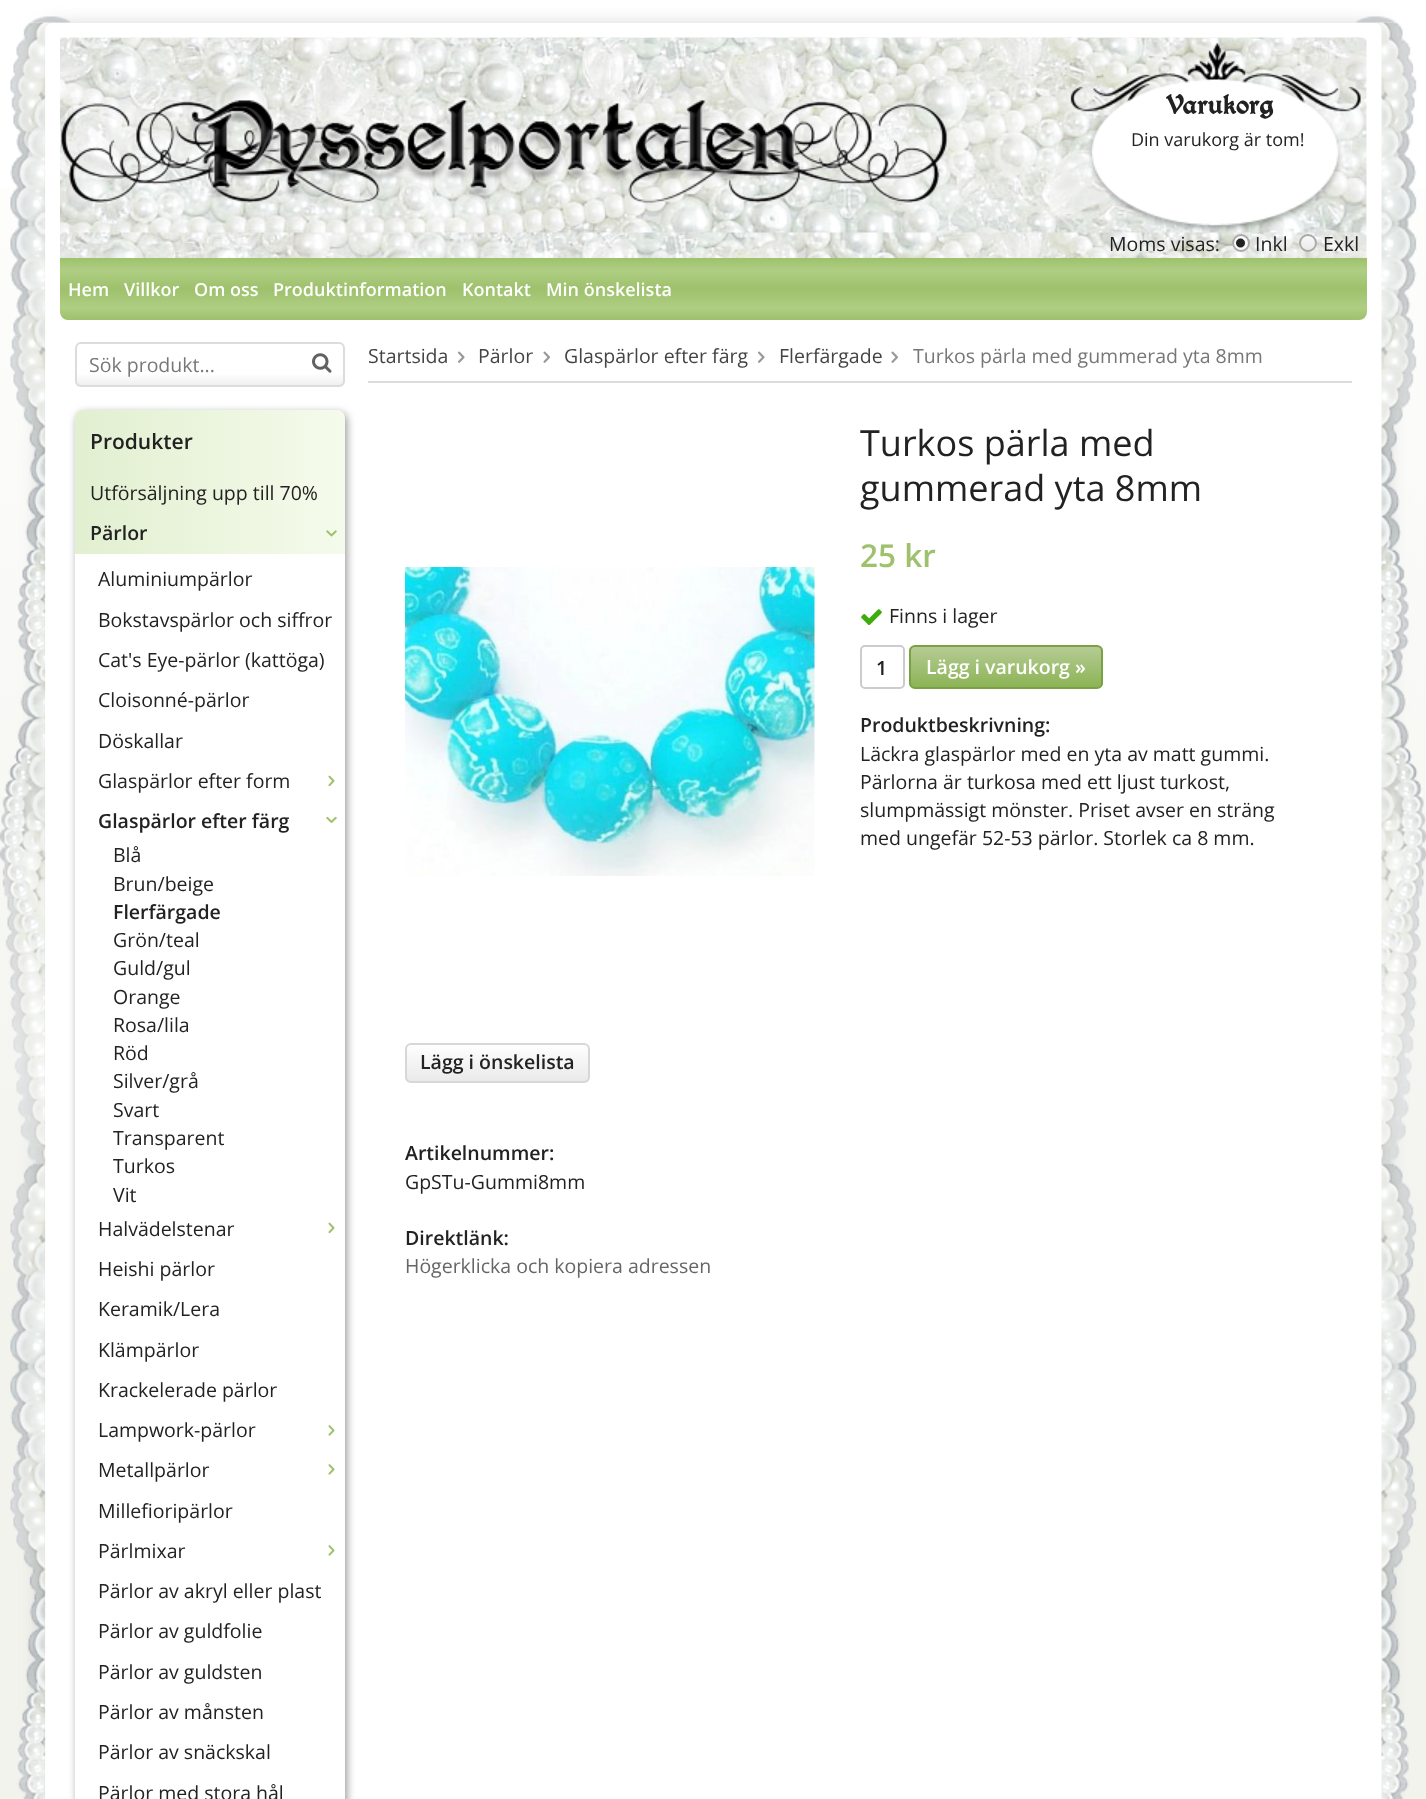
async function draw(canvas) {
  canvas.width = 1426
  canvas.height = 1799
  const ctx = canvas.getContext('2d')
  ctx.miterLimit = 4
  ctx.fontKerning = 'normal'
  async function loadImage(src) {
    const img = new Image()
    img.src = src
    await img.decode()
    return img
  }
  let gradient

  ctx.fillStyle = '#fff'
  ctx.fillRect(0, 0, 1426, 1799)
  gradient = ctx.createLinearGradient(713, 0, 713, 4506)
  gradient.addColorStop(0, '#fff')
  gradient.addColorStop(0.3, '#f2f3ed')
  ctx.fillStyle = gradient
  ctx.fillRect(0, 188, 1426, 1611)
  ctx.fillStyle = '#b5b5b5'
  ctx.filter = 'blur(11px)'
  ctx.beginPath()
  ctx.roundRect(45, 30, 1337, 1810, 8)
  ctx.fill()
  ctx.filter = 'none'
  ctx.fillStyle = '#fff'
  ctx.beginPath()
  ctx.moveTo(53, 23)
  ctx.lineTo(1374, 23)
  ctx.bezierCurveTo(1378.5, 23, 1382, 26.5, 1382, 31)
  ctx.lineTo(1382, 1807)
  ctx.lineTo(45, 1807)
  ctx.lineTo(45, 31)
  ctx.bezierCurveTo(45, 26.5, 48.5, 23, 53, 23)
  ctx.closePath()
  ctx.fill()
  ctx.drawImage(await loadImage('image0.png'), 31, 16, 1365, 7)
  ctx.drawImage(await loadImage('image1.png'), 0, 22, 46, 1777)
  ctx.drawImage(await loadImage('image2.png'), 60, 37, 1307, 221)
  ctx.drawImage(await loadImage('image3.png'), 60, 96, 888, 108)
  ctx.drawImage(await loadImage('image4.png'), 1068, 41, 297, 192)
  ctx.font = 'bold 30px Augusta'
  ctx.fillStyle = '#222'
  ctx.fillText('Varukorg', 1166, 114)
  ctx.font = '18px Open Sans'
  ctx.fillText('Din varukorg är tom!', 1131, 146)
  ctx.font = '19.5px Open Sans'
  ctx.fillText('Moms visas:', 1109, 251)
  ctx.fillStyle = '#f9f9f9'
  ctx.beginPath()
  ctx.arc(1241, 243, 9, 0, 2 * Math.PI)
  ctx.fill()
  ctx.drawImage(await loadImage('image5.png'), 1236, 238, 9, 10)
  ctx.beginPath()
  ctx.arc(1241, 243, 8, 0, 2 * Math.PI)
  ctx.strokeStyle = '#a9a9a9'
  ctx.lineWidth = 2
  ctx.stroke()
  ctx.fillStyle = '#222'
  ctx.fillText('Inkl', 1255, 251)
  ctx.save()
  ctx.beginPath()
  ctx.roundRect(1299, 234, 18, 18, 9)
  ctx.clip()
  gradient = ctx.createLinearGradient(1308, 236, 1308, 251)
  gradient.addColorStop(0, '#f9f9f9')
  gradient.addColorStop(1, '#e9e9e9')
  ctx.fillStyle = gradient
  ctx.fillRect(1299, 236, 18, 15)
  ctx.restore()
  ctx.beginPath()
  ctx.arc(1308, 243, 8, 0, 2 * Math.PI)
  ctx.stroke()
  ctx.fillText('Exkl', 1323, 251)
  ctx.drawImage(await loadImage('image6.png'), 1381, 22, 45, 1777)
  gradient = ctx.createLinearGradient(713, 258, 713, 320)
  gradient.addColorStop(0, '#9ec16c')
  gradient.addColorStop(0.2, '#afce83')
  gradient.addColorStop(0.5, '#9ec16c')
  gradient.addColorStop(0.8, '#afce83')
  gradient.addColorStop(1, '#9ec16c')
  ctx.fillStyle = gradient
  ctx.beginPath()
  ctx.roundRect(60, 258, 1307, 62, [0, 0, 8, 8])
  ctx.fill()
  ctx.font = '600 18px Open Sans'
  ctx.fillStyle = '#fff'
  ctx.fillText('Hem', 68, 296)
  ctx.fillText('Villkor', 124, 296)
  ctx.fillText('Om oss', 194, 296)
  ctx.fillText('Produktinformation', 273, 296)
  ctx.fillText('Kontakt', 462, 296)
  ctx.fillText('Min önskelista', 546, 296)
  ctx.save()
  ctx.beginPath()
  ctx.roundRect(75, 342, 270, 45, 6)
  ctx.clip()
  gradient = ctx.createLinearGradient(210, 344, 210, 386)
  gradient.addColorStop(0.7, '#fff')
  gradient.addColorStop(1, '#eee')
  ctx.fillStyle = gradient
  ctx.fillRect(75, 344, 270, 42)
  ctx.restore()
  ctx.beginPath()
  ctx.roundRect(76, 343, 268, 43, 5)
  ctx.strokeStyle = '#dcdcdc'
  ctx.stroke()
  ctx.font = '19.5px Open Sans'
  ctx.fillStyle = '#777'
  ctx.fillText('Sök produkt...', 89, 372)
  ctx.drawImage(await loadImage('image7.png'), 312, 353, 20, 20)
  ctx.fillStyle = '#999'
  ctx.filter = 'blur(4.5px)'
  ctx.beginPath()
  ctx.roundRect(77, 413, 270, 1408, 8)
  ctx.fill()
  ctx.filter = 'none'
  gradient = ctx.createLinearGradient(75, 1555, 345, 1555)
  gradient.addColorStop(0, '#e2efd0')
  gradient.addColorStop(1, '#f5fbec')
  ctx.fillStyle = gradient
  ctx.beginPath()
  ctx.roundRect(75, 410, 270, 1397, 8)
  ctx.fill()
  ctx.font = '600 21px Open Sans'
  ctx.fillStyle = '#222'
  ctx.fillText('Produkter', 90, 449)
  ctx.font = '19.5px Open Sans'
  ctx.fillText('Utförsäljning upp till 70%', 90, 500)
  ctx.font = '600 19.5px Open Sans'
  ctx.fillText('Pärlor', 90, 540)
  ctx.drawImage(await loadImage('image8.png'), 326, 530, 11, 7)
  ctx.fillStyle = '#fff'
  ctx.fillRect(75, 554, 270, 1245)
  ctx.font = '19.5px Open Sans'
  ctx.fillStyle = '#222'
  ctx.fillText('Aluminiumpärlor', 98, 586)
  ctx.fillText('Bokstavspärlor och siffror', 98, 627)
  ctx.fillText('Cat\'s Eye-pärlor (kattöga)', 98, 667)
  ctx.fillText('Cloisonné-pärlor', 98, 707)
  ctx.fillText('Döskallar', 98, 748)
  ctx.fillText('Glaspärlor efter form', 98, 788)
  ctx.drawImage(await loadImage('image9.png'), 328, 775, 7, 12)
  ctx.font = '600 19.5px Open Sans'
  ctx.fillText('Glaspärlor efter färg', 98, 828)
  ctx.drawImage(await loadImage('image10.png'), 326, 816, 11, 7)
  ctx.font = '19.5px Open Sans'
  ctx.fillText('Blå', 113, 862)
  ctx.fillText('Brun/beige', 113, 891)
  ctx.font = '600 19.5px Open Sans'
  ctx.fillText('Flerfärgade', 113, 919)
  ctx.font = '19.5px Open Sans'
  ctx.fillText('Grön/teal', 113, 947)
  ctx.fillText('Guld/gul', 113, 975)
  ctx.fillText('Orange', 113, 1004)
  ctx.fillText('Rosa/lila', 113, 1032)
  ctx.fillText('Röd', 113, 1060)
  ctx.fillText('Silver/grå', 113, 1088)
  ctx.fillText('Svart', 113, 1117)
  ctx.fillText('Transparent', 113, 1145)
  ctx.fillText('Turkos', 113, 1173)
  ctx.fillText('Vit', 113, 1202)
  ctx.fillText('Halvädelstenar', 98, 1236)
  ctx.drawImage(await loadImage('image9.png'), 328, 1222, 7, 12)
  ctx.fillText('Heishi pärlor', 98, 1276)
  ctx.fillText('Keramik/Lera', 98, 1316)
  ctx.fillText('Klämpärlor', 98, 1357)
  ctx.fillText('Krackelerade pärlor', 98, 1397)
  ctx.fillText('Lampwork-pärlor', 98, 1437)
  ctx.drawImage(await loadImage('image11.png'), 328, 1425, 7, 11)
  ctx.fillText('Metallpärlor', 98, 1477)
  ctx.drawImage(await loadImage('image11.png'), 328, 1464, 7, 11)
  ctx.fillText('Millefioripärlor', 98, 1518)
  ctx.fillText('Pärlmixar', 98, 1558)
  ctx.drawImage(await loadImage('image11.png'), 328, 1545, 7, 11)
  ctx.fillText('Pärlor av akryl eller plast', 98, 1598)
  ctx.fillText('Pärlor av guldfolie', 98, 1638)
  ctx.fillText('Pärlor av guldsten', 98, 1679)
  ctx.fillText('Pärlor av månsten', 98, 1719)
  ctx.fillText('Pärlor av snäckskal', 98, 1759)
  ctx.fillText('Pärlor med stora hål', 98, 1800)
  ctx.fillStyle = '#dcdcdc'
  ctx.fillRect(368, 381, 984, 2)
  ctx.fillStyle = '#444'
  ctx.fillText('Startsida', 368, 363)
  ctx.drawImage(await loadImage('image12.png'), 458, 351, 7, 12)
  ctx.fillText('Pärlor', 478, 363)
  ctx.drawImage(await loadImage('image13.png'), 543, 351, 7, 12)
  ctx.fillText('Glaspärlor efter färg', 564, 363)
  ctx.drawImage(await loadImage('image12.png'), 758, 351, 7, 12)
  ctx.fillText('Flerfärgade', 779, 363)
  ctx.drawImage(await loadImage('image13.png'), 891, 351, 7, 12)
  ctx.fillStyle = '#777'
  ctx.fillText('Turkos pärla med gummerad yta 8mm', 913, 363)
  ctx.drawImage(await loadImage('image14.png'), 405, 567, 410, 309)
  ctx.font = '36px Open Sans'
  ctx.fillStyle = '#222'
  ctx.fillText('Turkos pärla med', 860, 456)
  ctx.fillText('gummerad yta 8mm', 860, 501)
  ctx.font = '600 31.5px Open Sans'
  ctx.fillStyle = '#9ec16c'
  ctx.fillText('25 kr', 860, 567)
  ctx.drawImage(await loadImage('image15.png'), 861, 609, 21, 16)
  ctx.font = '19.5px Open Sans'
  ctx.fillStyle = '#222'
  ctx.fillText('Finns i lager', 889, 623)
  ctx.beginPath()
  ctx.roundRect(861, 646, 43, 42, 4)
  ctx.strokeStyle = '#ccc'
  ctx.stroke()
  ctx.font = '600 19.5px Open Sans'
  ctx.fillText('1', 876, 675)
  ctx.save()
  ctx.beginPath()
  ctx.roundRect(909, 645, 194, 44, 6)
  ctx.clip()
  gradient = ctx.createLinearGradient(1006, 647, 1006, 687)
  gradient.addColorStop(0, '#b5cb94')
  gradient.addColorStop(1, '#8cb455')
  ctx.fillStyle = gradient
  ctx.fillRect(909, 647, 194, 40)
  ctx.restore()
  ctx.beginPath()
  ctx.roundRect(910, 646, 192, 42, 5)
  ctx.strokeStyle = '#7ba145'
  ctx.stroke()
  ctx.fillStyle = '#fff'
  ctx.fillText('Lägg i varukorg »', 926, 674)
  ctx.fillStyle = '#222'
  ctx.fillText('Produktbeskrivning:', 860, 732)
  ctx.font = '19.5px Open Sans'
  ctx.fillText('Läckra glaspärlor med en yta av matt gummi.', 860, 761)
  ctx.fillText('Pärlorna är turkosa med ett ljust turkost,', 860, 789)
  ctx.fillText('slumpmässigt mönster. Priset avser en sträng', 860, 817)
  ctx.fillText('med ungefär 52-53 pärlor. Storlek ca 8 mm.', 860, 845)
  ctx.save()
  ctx.beginPath()
  ctx.roundRect(405, 1043, 185, 40, 6)
  ctx.clip()
  gradient = ctx.createLinearGradient(497, 1044, 497, 1082)
  gradient.addColorStop(0, '#fff')
  gradient.addColorStop(1, '#e9e9e9')
  ctx.fillStyle = gradient
  ctx.fillRect(405, 1044, 185, 38)
  ctx.restore()
  ctx.beginPath()
  ctx.roundRect(406, 1044, 183, 38, 5)
  ctx.strokeStyle = '#d7d7d7'
  ctx.stroke()
  ctx.font = '600 19.5px Open Sans'
  ctx.fillText('Lägg i önskelista', 420, 1069)
  ctx.fillText('Artikelnummer:', 405, 1160)
  ctx.font = '19.5px Open Sans'
  ctx.fillText('GpSTu-Gummi8mm', 405, 1189)
  ctx.font = '600 19.5px Open Sans'
  ctx.fillText('Direktlänk:', 405, 1245)
  ctx.font = '19.5px Open Sans'
  ctx.fillStyle = '#666'
  ctx.fillText('Högerklicka och kopiera adressen', 405, 1273)
}

draw(document.querySelector('canvas'))
